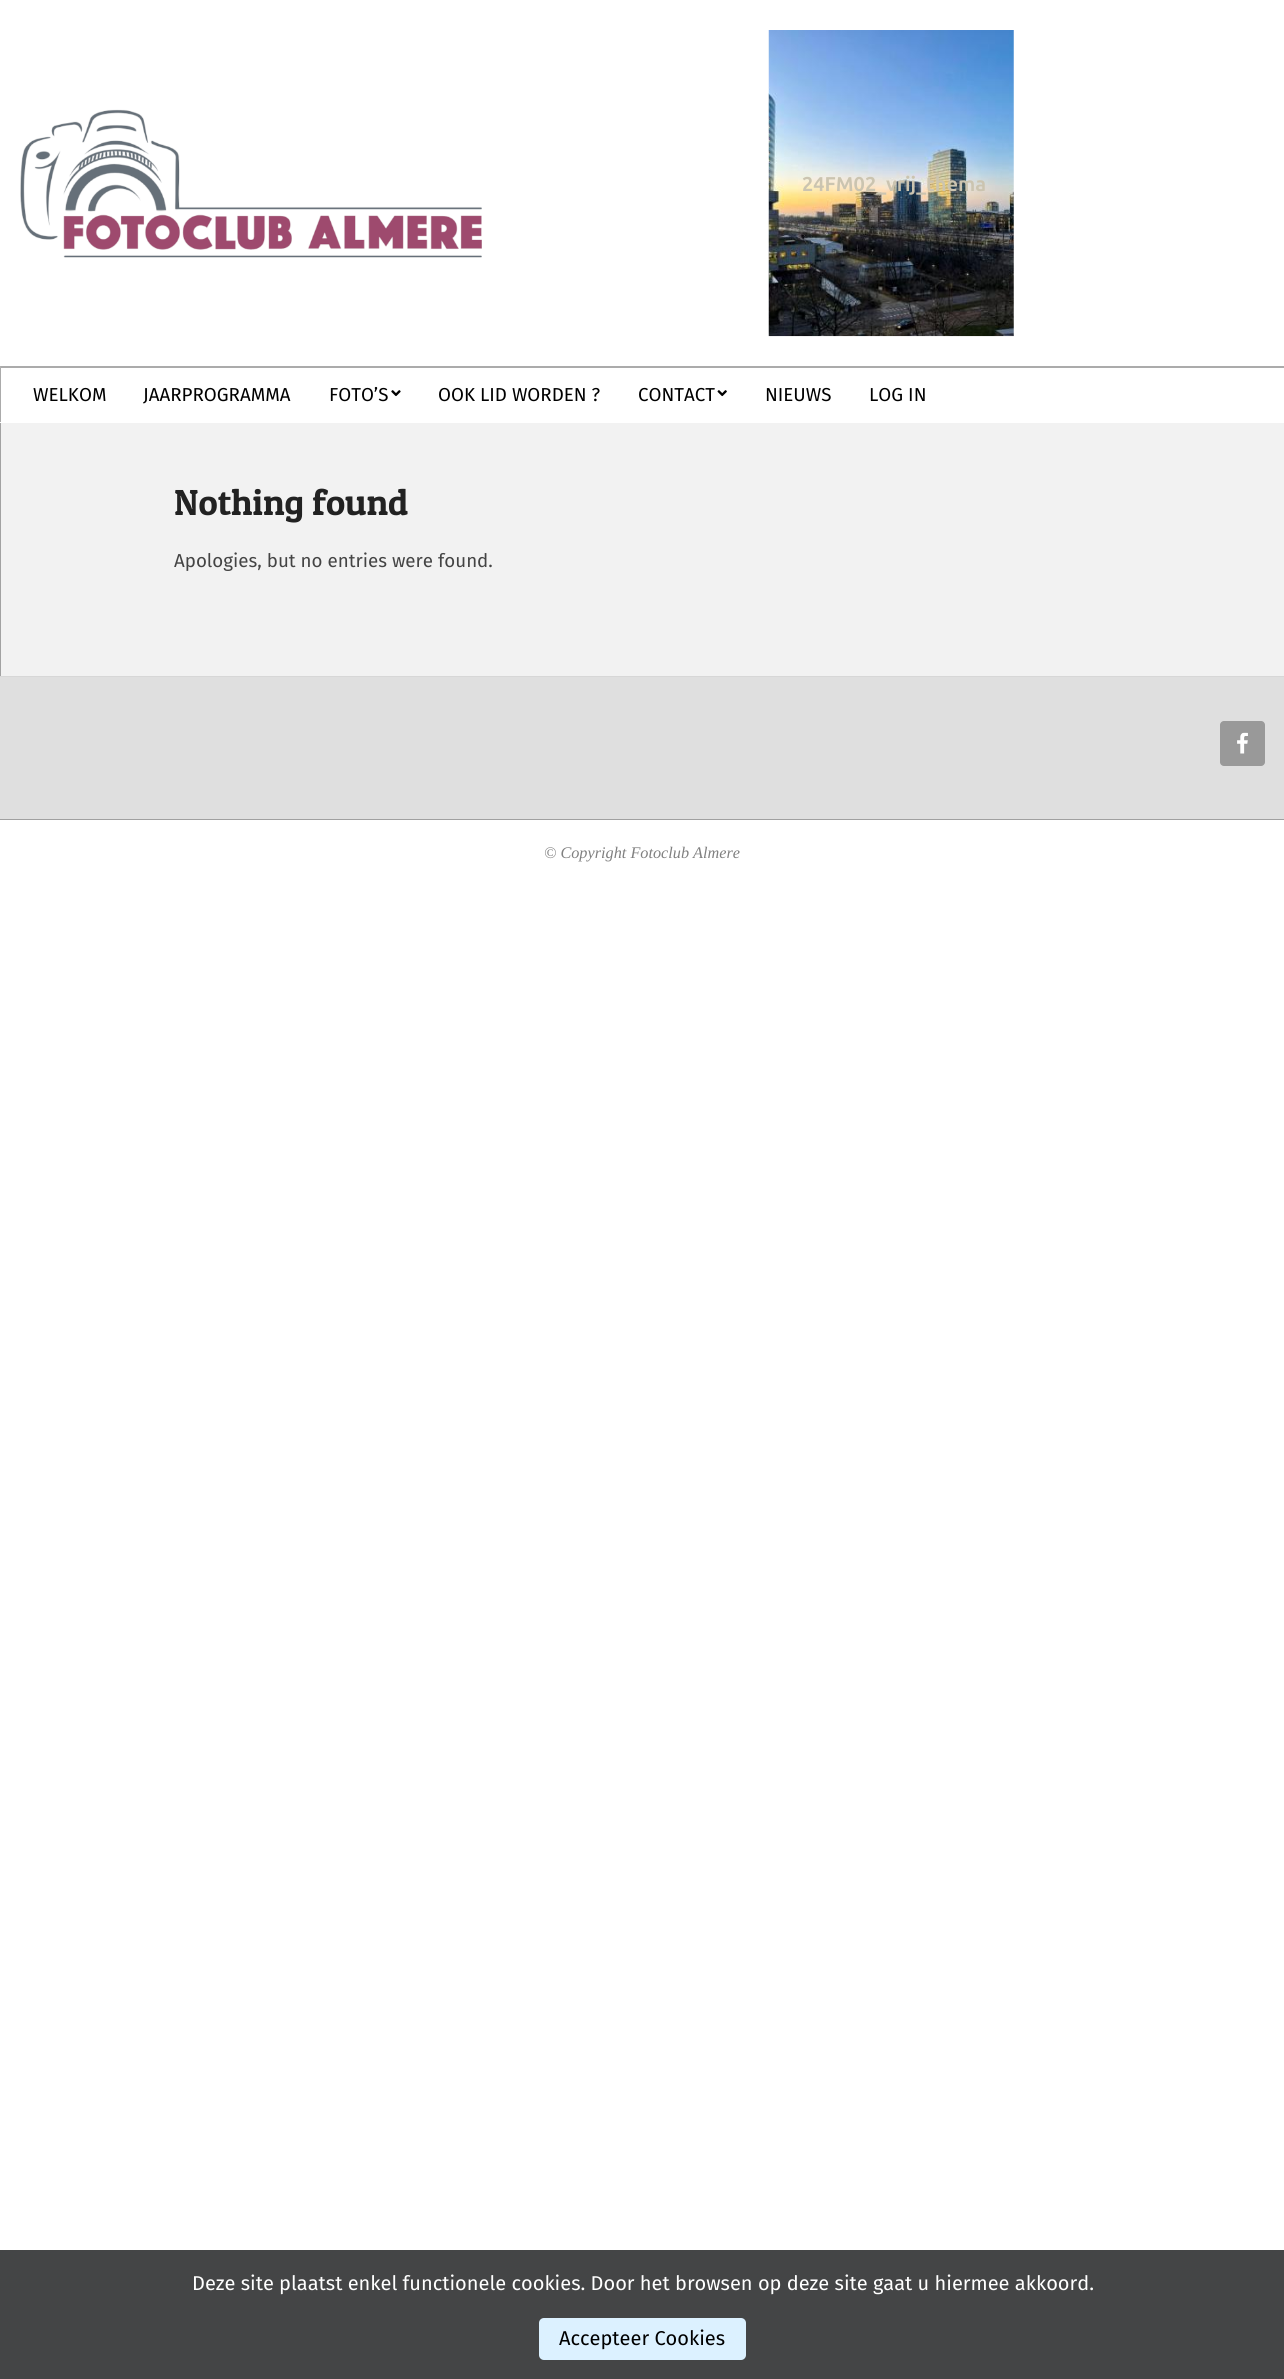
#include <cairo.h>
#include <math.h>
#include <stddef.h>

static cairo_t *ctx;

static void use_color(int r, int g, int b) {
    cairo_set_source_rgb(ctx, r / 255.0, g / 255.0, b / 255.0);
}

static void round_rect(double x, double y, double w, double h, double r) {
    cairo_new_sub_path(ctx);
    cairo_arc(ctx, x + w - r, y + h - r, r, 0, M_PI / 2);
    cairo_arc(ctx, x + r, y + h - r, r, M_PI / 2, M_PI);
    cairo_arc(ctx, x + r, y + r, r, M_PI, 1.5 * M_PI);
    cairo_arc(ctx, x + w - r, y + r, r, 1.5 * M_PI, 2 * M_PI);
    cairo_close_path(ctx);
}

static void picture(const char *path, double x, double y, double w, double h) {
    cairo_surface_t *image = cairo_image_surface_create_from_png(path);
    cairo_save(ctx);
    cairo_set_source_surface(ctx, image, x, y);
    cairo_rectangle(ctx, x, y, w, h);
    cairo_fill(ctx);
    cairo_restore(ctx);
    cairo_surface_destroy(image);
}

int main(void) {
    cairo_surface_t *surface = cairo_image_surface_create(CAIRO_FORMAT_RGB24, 1284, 2379);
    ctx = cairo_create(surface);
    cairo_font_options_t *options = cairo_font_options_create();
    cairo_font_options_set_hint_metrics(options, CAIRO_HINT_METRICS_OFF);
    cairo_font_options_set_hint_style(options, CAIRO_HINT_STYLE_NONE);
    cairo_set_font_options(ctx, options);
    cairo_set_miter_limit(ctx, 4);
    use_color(255, 255, 255);
    cairo_paint(ctx);
    picture("img1.png", 20, 109, 462, 149);
    picture("img2.png", 768, 30, 246, 307);
    cairo_select_font_face(ctx, "Ubuntu", CAIRO_FONT_SLANT_NORMAL, CAIRO_FONT_WEIGHT_BOLD);
    cairo_set_font_size(ctx, 20);
    use_color(203, 196, 176);
    cairo_move_to(ctx, 802, 191);
    cairo_show_text(ctx, "24FM02_vrij_thema");
    use_color(171, 171, 171);
    cairo_new_path(ctx);
    cairo_move_to(ctx, 0, 366);
    cairo_line_to(ctx, 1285, 366);
    cairo_line_to(ctx, 1284, 368);
    cairo_line_to(ctx, 1, 368);
    cairo_close_path(ctx);
    cairo_fill(ctx);
    cairo_set_source_rgba(ctx, 0, 0, 0, 0.33);
    cairo_new_path(ctx);
    cairo_move_to(ctx, 0, 422);
    cairo_line_to(ctx, 0, 366);
    cairo_line_to(ctx, 1, 368);
    cairo_line_to(ctx, 1, 422);
    cairo_close_path(ctx);
    cairo_fill(ctx);
    cairo_select_font_face(ctx, "Fira Sans", CAIRO_FONT_SLANT_NORMAL, CAIRO_FONT_WEIGHT_NORMAL);
    cairo_set_font_size(ctx, 18.75);
    use_color(0, 0, 0);
    cairo_move_to(ctx, 33, 401);
    cairo_show_text(ctx, "WELKOM");
    cairo_move_to(ctx, 143, 401);
    cairo_show_text(ctx, "JAARPROGRAMMA");
    cairo_move_to(ctx, 329, 401);
    cairo_show_text(ctx, "FOTO’S");
    picture("img3.png", 391, 390, 10, 7);
    cairo_move_to(ctx, 438, 401);
    cairo_show_text(ctx, "OOK LID WORDEN ?");
    cairo_move_to(ctx, 638, 401);
    cairo_show_text(ctx, "CONTACT");
    picture("img4.png", 717, 390, 10, 7);
    cairo_move_to(ctx, 765, 401);
    cairo_show_text(ctx, "NIEUWS");
    cairo_move_to(ctx, 869, 401);
    cairo_show_text(ctx, "LOG IN");
    use_color(242, 242, 242);
    cairo_rectangle(ctx, 1, 423, 1283, 253);
    cairo_fill(ctx);
    use_color(162, 162, 162);
    cairo_rectangle(ctx, 0, 423, 1, 253);
    cairo_fill(ctx);
    cairo_select_font_face(ctx, "Patua One", CAIRO_FONT_SLANT_NORMAL, CAIRO_FONT_WEIGHT_NORMAL);
    cairo_set_font_size(ctx, 36.25);
    use_color(34, 34, 34);
    cairo_move_to(ctx, 174, 515);
    cairo_show_text(ctx, "Nothing found");
    cairo_select_font_face(ctx, "Fira Sans", CAIRO_FONT_SLANT_NORMAL, CAIRO_FONT_WEIGHT_NORMAL);
    cairo_set_font_size(ctx, 18.75);
    use_color(68, 68, 68);
    cairo_move_to(ctx, 174, 567);
    cairo_show_text(ctx, "Apologies, but no entries were found.");
    use_color(223, 223, 223);
    cairo_rectangle(ctx, 0, 677, 1284, 142);
    cairo_fill(ctx);
    use_color(215, 215, 215);
    cairo_rectangle(ctx, 0, 676, 1284, 1);
    cairo_fill(ctx);
    use_color(153, 153, 153);
    round_rect(1220, 721, 45, 45, 4);
    cairo_fill(ctx);
    picture("img5.png", 1237, 732, 11, 22);
    use_color(160, 160, 160);
    cairo_rectangle(ctx, 0, 819, 1284, 1);
    cairo_fill(ctx);
    cairo_select_font_face(ctx, "Liberation Serif", CAIRO_FONT_SLANT_ITALIC, CAIRO_FONT_WEIGHT_NORMAL);
    cairo_set_font_size(ctx, 16.25);
    use_color(128, 128, 128);
    cairo_move_to(ctx, 544, 858);
    cairo_show_text(ctx, "© Copyright Fotoclub Almere");
    use_color(68, 69, 70);
    cairo_rectangle(ctx, 0, 2250, 1284, 129);
    cairo_fill(ctx);
    cairo_select_font_face(ctx, "Fira Sans", CAIRO_FONT_SLANT_NORMAL, CAIRO_FONT_WEIGHT_NORMAL);
    cairo_set_font_size(ctx, 20);
    use_color(255, 255, 255);
    cairo_move_to(ctx, 192, 2290);
    cairo_show_text(ctx, "Deze site plaatst enkel functionele cookies. Door het browsen op deze site gaat u hiermee akkoord.");
    use_color(220, 241, 255);
    round_rect(539, 2318, 207, 42, 5);
    cairo_fill(ctx);
    use_color(0, 0, 0);
    cairo_move_to(ctx, 559, 2345);
    cairo_show_text(ctx, "Accepteer Cookies");
    cairo_surface_write_to_png(surface, "result.png");
    cairo_font_options_destroy(options);
    cairo_destroy(ctx);
    cairo_surface_destroy(surface);
    return 0;
}
